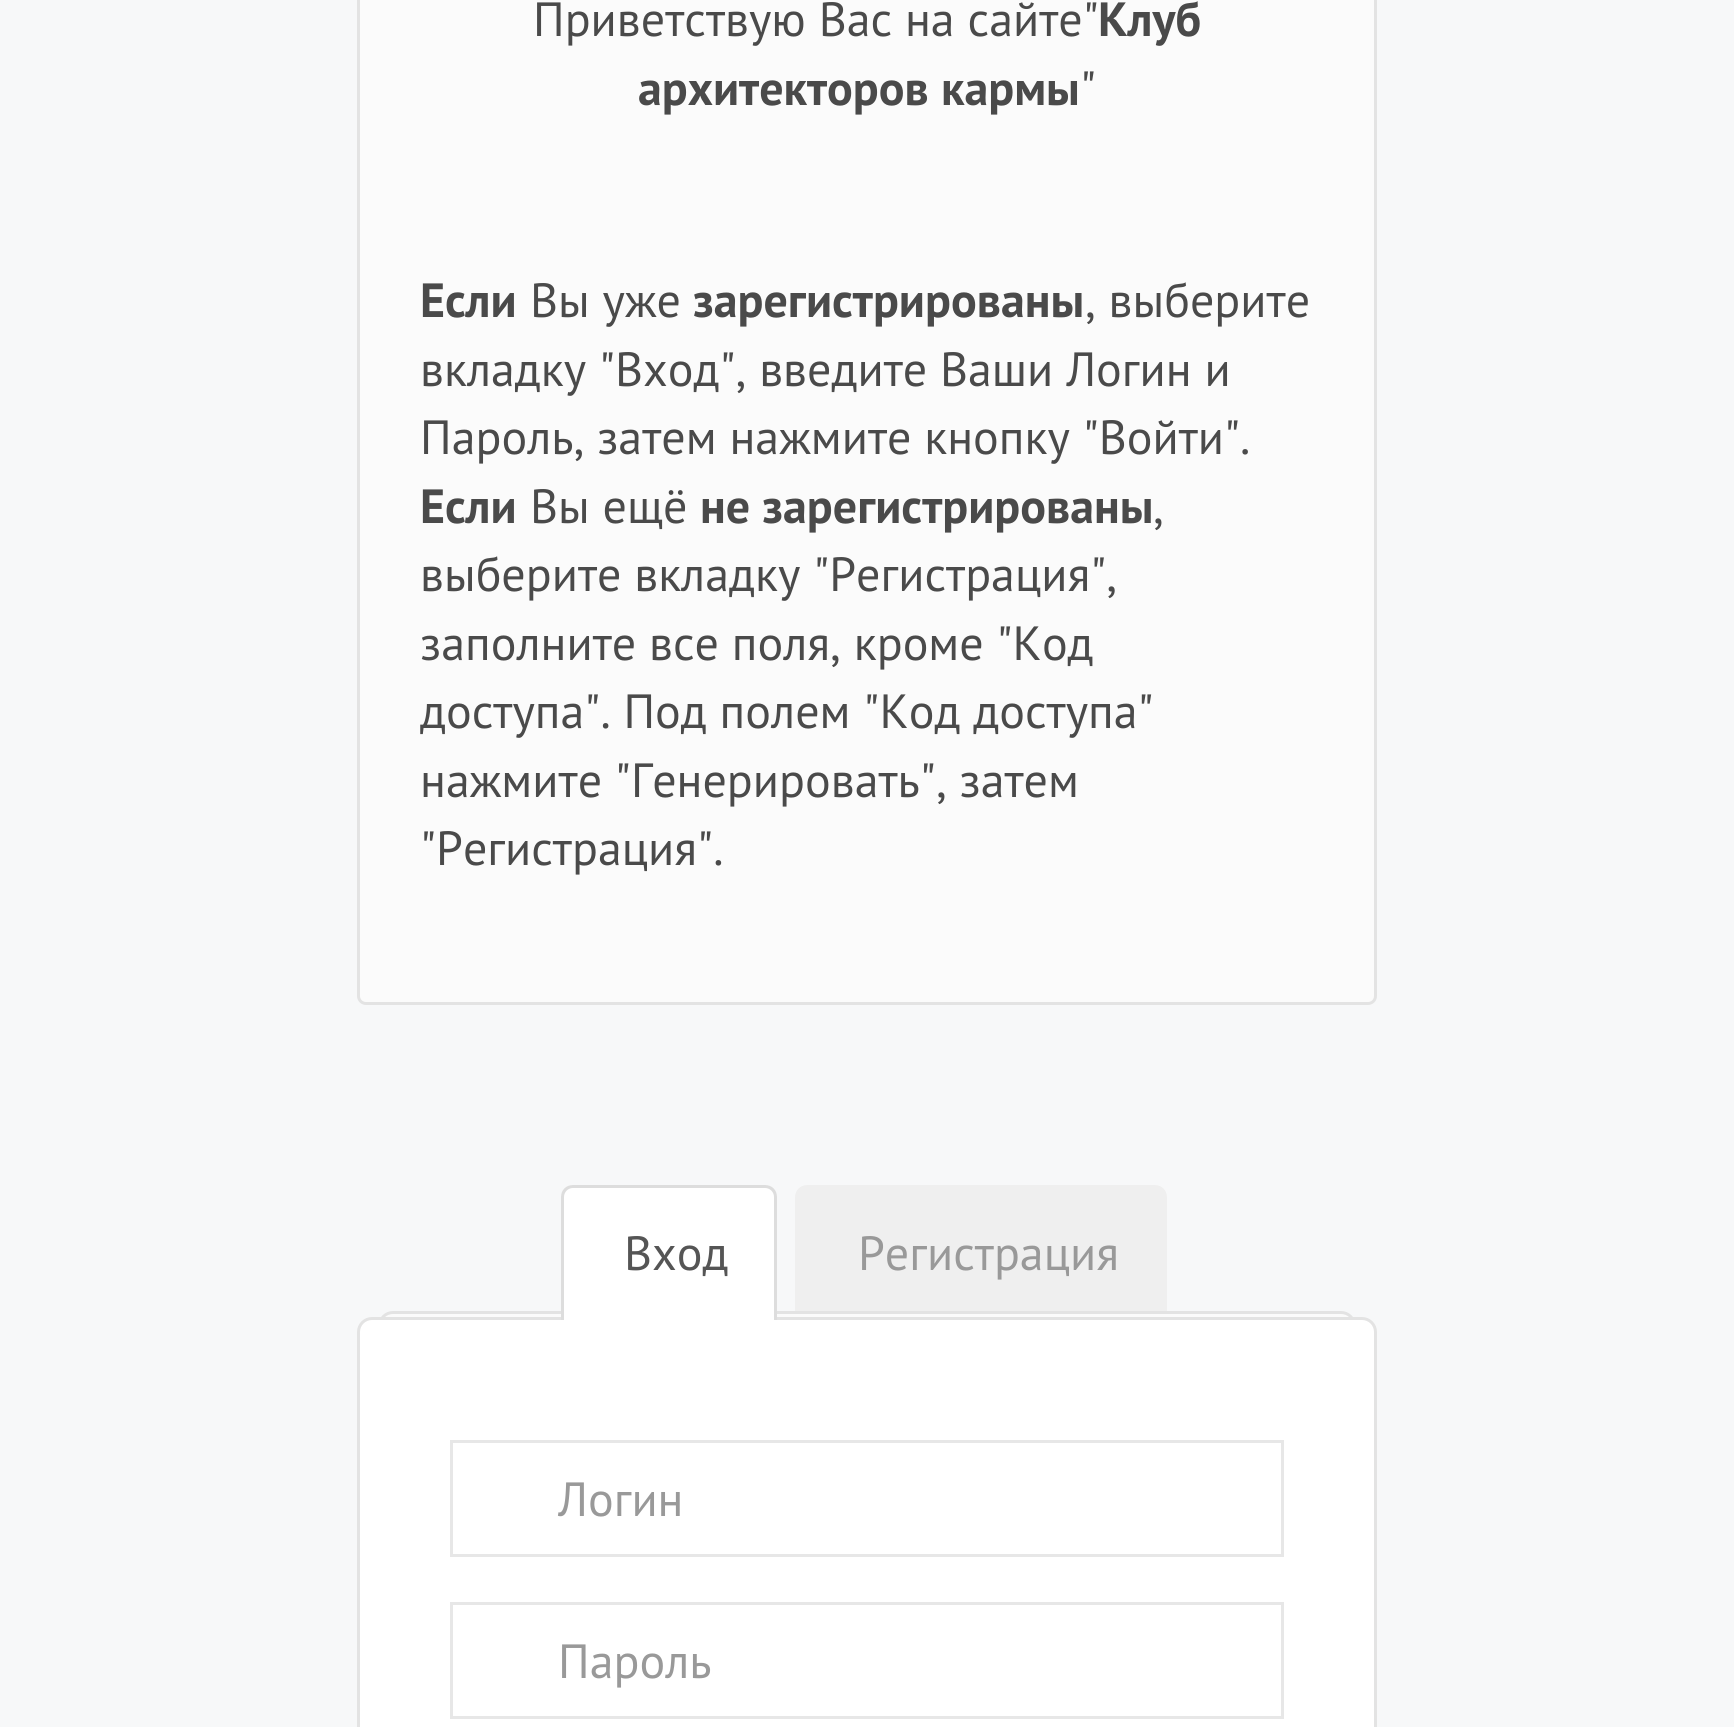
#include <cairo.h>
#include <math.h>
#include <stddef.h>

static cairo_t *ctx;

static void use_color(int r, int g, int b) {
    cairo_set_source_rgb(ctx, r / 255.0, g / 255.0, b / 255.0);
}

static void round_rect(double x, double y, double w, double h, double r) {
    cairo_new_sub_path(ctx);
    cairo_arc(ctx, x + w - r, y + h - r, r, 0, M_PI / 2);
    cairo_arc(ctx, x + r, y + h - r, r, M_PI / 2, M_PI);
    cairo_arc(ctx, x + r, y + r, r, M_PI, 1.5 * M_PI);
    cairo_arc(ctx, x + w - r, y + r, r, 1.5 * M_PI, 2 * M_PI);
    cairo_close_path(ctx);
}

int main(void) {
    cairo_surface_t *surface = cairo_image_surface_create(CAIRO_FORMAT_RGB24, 1734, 1727);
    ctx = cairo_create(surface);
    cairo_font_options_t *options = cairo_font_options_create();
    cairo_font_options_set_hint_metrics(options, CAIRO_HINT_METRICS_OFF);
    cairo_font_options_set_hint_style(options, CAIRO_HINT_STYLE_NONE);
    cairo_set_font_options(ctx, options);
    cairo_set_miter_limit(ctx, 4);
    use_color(247, 248, 249);
    cairo_paint(ctx);
    use_color(251, 251, 251);
    round_rect(358.5, -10.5, 1017, 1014, 7.5);
    cairo_fill_preserve(ctx);
    use_color(227, 227, 227);
    cairo_set_line_width(ctx, 3);
    cairo_stroke(ctx);
    cairo_select_font_face(ctx, "PT Sans", CAIRO_FONT_SLANT_NORMAL, CAIRO_FONT_WEIGHT_NORMAL);
    cairo_set_font_size(ctx, 48);
    use_color(74, 74, 74);
    cairo_move_to(ctx, 533, 36);
    cairo_show_text(ctx, "Приветствую Вас на сайте\"");
    cairo_select_font_face(ctx, "PT Sans", CAIRO_FONT_SLANT_NORMAL, CAIRO_FONT_WEIGHT_BOLD);
    cairo_move_to(ctx, 1098, 36);
    cairo_show_text(ctx, "Клуб");
    cairo_select_font_face(ctx, "PT Sans", CAIRO_FONT_SLANT_NORMAL, CAIRO_FONT_WEIGHT_NORMAL);
    cairo_move_to(ctx, 1080, 105);
    cairo_show_text(ctx, "\"");
    cairo_select_font_face(ctx, "PT Sans", CAIRO_FONT_SLANT_NORMAL, CAIRO_FONT_WEIGHT_BOLD);
    cairo_move_to(ctx, 638, 105);
    cairo_show_text(ctx, "архитекторов кармы");
    cairo_move_to(ctx, 420, 317);
    cairo_show_text(ctx, "Если");
    cairo_select_font_face(ctx, "PT Sans", CAIRO_FONT_SLANT_NORMAL, CAIRO_FONT_WEIGHT_NORMAL);
    cairo_move_to(ctx, 530, 317);
    cairo_show_text(ctx, "Вы уже");
    cairo_select_font_face(ctx, "PT Sans", CAIRO_FONT_SLANT_NORMAL, CAIRO_FONT_WEIGHT_BOLD);
    cairo_move_to(ctx, 693, 317);
    cairo_show_text(ctx, "зарегистрированы");
    cairo_select_font_face(ctx, "PT Sans", CAIRO_FONT_SLANT_NORMAL, CAIRO_FONT_WEIGHT_NORMAL);
    cairo_move_to(ctx, 1085, 317);
    cairo_show_text(ctx, ", выберите");
    cairo_move_to(ctx, 420, 386);
    cairo_show_text(ctx, "вкладку \"Вход\", введите Ваши Логин и");
    cairo_move_to(ctx, 420, 454);
    cairo_show_text(ctx, "Пароль, затем нажмите кнопку \"Войти\".");
    cairo_select_font_face(ctx, "PT Sans", CAIRO_FONT_SLANT_NORMAL, CAIRO_FONT_WEIGHT_BOLD);
    cairo_move_to(ctx, 420, 523);
    cairo_show_text(ctx, "Если");
    cairo_select_font_face(ctx, "PT Sans", CAIRO_FONT_SLANT_NORMAL, CAIRO_FONT_WEIGHT_NORMAL);
    cairo_move_to(ctx, 530, 523);
    cairo_show_text(ctx, "Вы ещё");
    cairo_select_font_face(ctx, "PT Sans", CAIRO_FONT_SLANT_NORMAL, CAIRO_FONT_WEIGHT_BOLD);
    cairo_move_to(ctx, 700, 523);
    cairo_show_text(ctx, "не зарегистрированы");
    cairo_select_font_face(ctx, "PT Sans", CAIRO_FONT_SLANT_NORMAL, CAIRO_FONT_WEIGHT_NORMAL);
    cairo_move_to(ctx, 1153, 523);
    cairo_show_text(ctx, ",");
    cairo_move_to(ctx, 420, 591);
    cairo_show_text(ctx, "выберите вкладку \"Регистрация\",");
    cairo_move_to(ctx, 420, 660);
    cairo_show_text(ctx, "заполните все поля, кроме \"Код");
    cairo_move_to(ctx, 420, 728);
    cairo_show_text(ctx, "доступа\". Под полем \"Код доступа\"");
    cairo_move_to(ctx, 420, 797);
    cairo_show_text(ctx, "нажмите \"Генерировать\", затем");
    cairo_move_to(ctx, 420, 865);
    cairo_show_text(ctx, "\"Регистрация\".");
    use_color(251, 251, 251);
    round_rect(379.5, 1312.5, 975, 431, 13.5);
    cairo_fill_preserve(ctx);
    use_color(227, 227, 227);
    cairo_stroke(ctx);
    use_color(255, 255, 255);
    round_rect(358.5, 1318.5, 1017, 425, 13.5);
    cairo_fill_preserve(ctx);
    use_color(227, 227, 227);
    cairo_stroke(ctx);
    use_color(255, 255, 255);
    cairo_new_path(ctx);
    cairo_move_to(ctx, 573, 1185);
    cairo_line_to(ctx, 765, 1185);
    cairo_curve_to(ctx, 771.5, 1185, 777, 1190.5, 777, 1197);
    cairo_line_to(ctx, 777, 1320);
    cairo_line_to(ctx, 561, 1320);
    cairo_line_to(ctx, 561, 1197);
    cairo_curve_to(ctx, 561, 1190.5, 566.5, 1185, 573, 1185);
    cairo_close_path(ctx);
    cairo_fill(ctx);
    use_color(221, 221, 221);
    cairo_set_fill_rule(ctx, CAIRO_FILL_RULE_EVEN_ODD);
    cairo_new_path(ctx);
    cairo_move_to(ctx, 573, 1185);
    cairo_line_to(ctx, 765, 1185);
    cairo_curve_to(ctx, 772, 1185, 777, 1190, 777, 1197);
    cairo_line_to(ctx, 777, 1320);
    cairo_line_to(ctx, 561, 1320);
    cairo_line_to(ctx, 561, 1197);
    cairo_curve_to(ctx, 561, 1190, 566, 1185, 573, 1185);
    cairo_close_path(ctx);
    cairo_move_to(ctx, 573, 1188);
    cairo_line_to(ctx, 765, 1188);
    cairo_curve_to(ctx, 770, 1188, 774, 1192, 774, 1197);
    cairo_line_to(ctx, 774, 1320);
    cairo_line_to(ctx, 564, 1320);
    cairo_line_to(ctx, 564, 1197);
    cairo_curve_to(ctx, 564, 1192, 568, 1188, 573, 1188);
    cairo_close_path(ctx);
    cairo_fill(ctx);
    use_color(85, 85, 85);
    cairo_move_to(ctx, 624, 1270);
    cairo_show_text(ctx, "Вход");
    use_color(239, 239, 239);
    cairo_new_path(ctx);
    cairo_move_to(ctx, 807, 1185);
    cairo_line_to(ctx, 1155, 1185);
    cairo_curve_to(ctx, 1161.5, 1185, 1167, 1190.5, 1167, 1197);
    cairo_line_to(ctx, 1167, 1311);
    cairo_line_to(ctx, 795, 1311);
    cairo_line_to(ctx, 795, 1197);
    cairo_curve_to(ctx, 795, 1190.5, 800.5, 1185, 807, 1185);
    cairo_close_path(ctx);
    cairo_fill(ctx);
    use_color(153, 153, 153);
    cairo_move_to(ctx, 858, 1270);
    cairo_show_text(ctx, "Регистрация");
    cairo_rectangle(ctx, 451.5, 1441.5, 831, 114);
    use_color(231, 231, 231);
    cairo_stroke(ctx);
    use_color(153, 153, 153);
    cairo_move_to(ctx, 558, 1516);
    cairo_show_text(ctx, "Логин");
    cairo_rectangle(ctx, 451.5, 1603.5, 831, 114);
    use_color(231, 231, 231);
    cairo_stroke(ctx);
    use_color(153, 153, 153);
    cairo_move_to(ctx, 558, 1678);
    cairo_show_text(ctx, "Пароль");
    cairo_surface_write_to_png(surface, "result.png");
    cairo_font_options_destroy(options);
    cairo_destroy(ctx);
    cairo_surface_destroy(surface);
    return 0;
}
